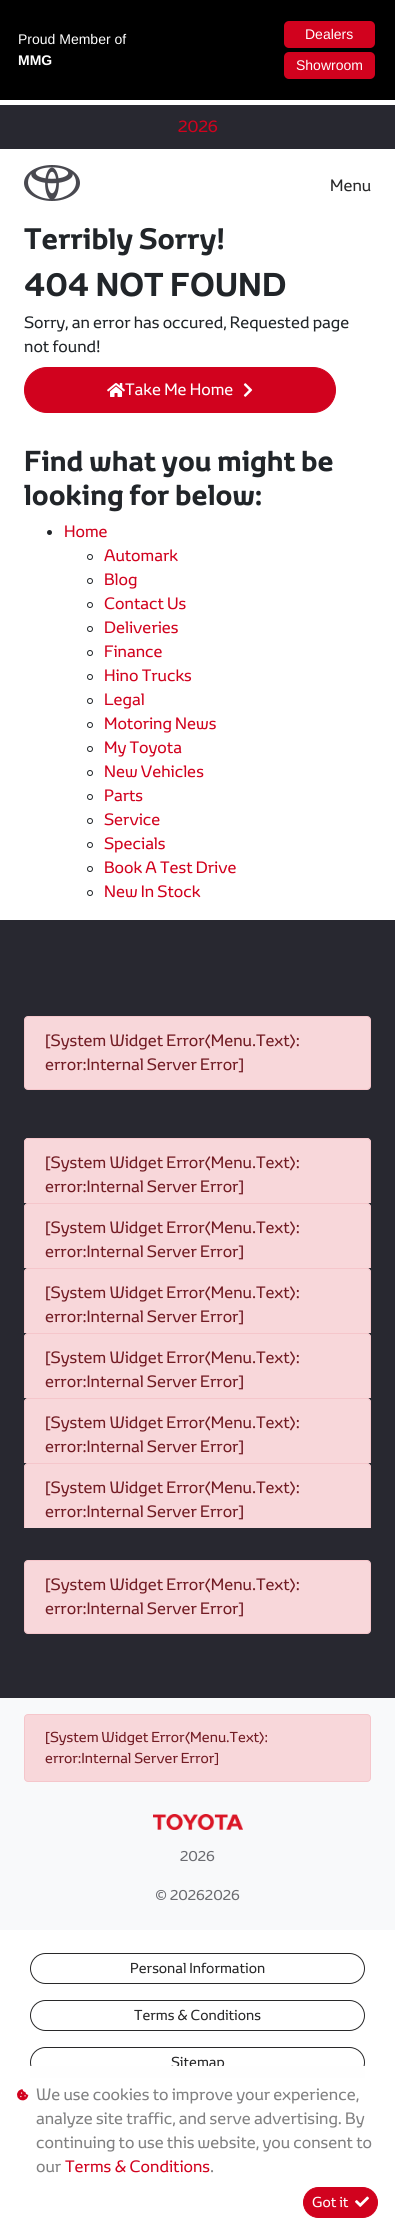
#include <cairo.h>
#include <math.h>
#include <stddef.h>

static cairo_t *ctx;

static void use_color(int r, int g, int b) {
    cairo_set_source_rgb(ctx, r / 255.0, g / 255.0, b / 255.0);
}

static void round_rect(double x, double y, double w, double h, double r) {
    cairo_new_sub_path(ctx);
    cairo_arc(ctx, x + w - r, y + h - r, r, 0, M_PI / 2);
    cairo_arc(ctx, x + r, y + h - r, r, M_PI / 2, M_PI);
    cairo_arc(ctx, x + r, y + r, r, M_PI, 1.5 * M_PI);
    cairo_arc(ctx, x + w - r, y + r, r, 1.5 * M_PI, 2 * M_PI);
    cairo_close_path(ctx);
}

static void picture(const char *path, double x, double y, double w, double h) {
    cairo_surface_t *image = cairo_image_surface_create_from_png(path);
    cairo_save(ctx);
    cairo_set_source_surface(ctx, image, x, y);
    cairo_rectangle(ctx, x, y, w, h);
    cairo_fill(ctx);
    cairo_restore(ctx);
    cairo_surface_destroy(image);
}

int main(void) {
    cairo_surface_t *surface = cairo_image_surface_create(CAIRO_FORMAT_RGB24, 395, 2235);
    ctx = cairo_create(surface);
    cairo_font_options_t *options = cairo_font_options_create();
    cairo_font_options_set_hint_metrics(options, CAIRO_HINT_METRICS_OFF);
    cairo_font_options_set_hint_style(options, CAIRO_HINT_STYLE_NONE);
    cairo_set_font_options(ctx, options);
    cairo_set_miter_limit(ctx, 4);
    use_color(255, 255, 255);
    cairo_paint(ctx);
    use_color(0, 0, 0);
    cairo_rectangle(ctx, 0, 0, 395, 100);
    cairo_fill(ctx);
    cairo_select_font_face(ctx, "Liberation Sans", CAIRO_FONT_SLANT_NORMAL, CAIRO_FONT_WEIGHT_NORMAL);
    cairo_set_font_size(ctx, 14);
    use_color(255, 255, 255);
    cairo_move_to(ctx, 18, 44);
    cairo_show_text(ctx, "Proud Member of");
    cairo_select_font_face(ctx, "Liberation Sans", CAIRO_FONT_SLANT_NORMAL, CAIRO_FONT_WEIGHT_BOLD);
    cairo_move_to(ctx, 18, 65);
    cairo_show_text(ctx, "MMG");
    use_color(209, 2, 30);
    round_rect(284, 21, 91, 27, 5);
    cairo_fill(ctx);
    cairo_select_font_face(ctx, "Liberation Sans", CAIRO_FONT_SLANT_NORMAL, CAIRO_FONT_WEIGHT_NORMAL);
    use_color(255, 255, 255);
    cairo_move_to(ctx, 305, 39);
    cairo_show_text(ctx, "Dealers");
    use_color(209, 2, 30);
    round_rect(284, 52, 91, 27, 5);
    cairo_fill(ctx);
    use_color(255, 255, 255);
    cairo_move_to(ctx, 296, 70);
    cairo_show_text(ctx, "Showroom");
    use_color(40, 40, 48);
    cairo_rectangle(ctx, 0, 105, 395, 44);
    cairo_fill(ctx);
    cairo_select_font_face(ctx, "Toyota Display", CAIRO_FONT_SLANT_NORMAL, CAIRO_FONT_WEIGHT_NORMAL);
    cairo_set_font_size(ctx, 16);
    use_color(209, 2, 30);
    cairo_move_to(ctx, 178, 132);
    cairo_show_text(ctx, "2026");
    picture("img1.png", 24, 165, 56, 36);
    use_color(40, 40, 41);
    cairo_move_to(ctx, 330, 191);
    cairo_show_text(ctx, "Menu");
    cairo_select_font_face(ctx, "Toyota Display", CAIRO_FONT_SLANT_NORMAL, CAIRO_FONT_WEIGHT_BOLD);
    cairo_set_font_size(ctx, 28.75);
    use_color(33, 37, 41);
    cairo_move_to(ctx, 24, 249);
    cairo_show_text(ctx, "Terribly Sorry!");
    cairo_set_font_size(ctx, 32);
    cairo_move_to(ctx, 24, 296);
    cairo_show_text(ctx, "404 NOT FOUND");
    cairo_select_font_face(ctx, "Toyota Display", CAIRO_FONT_SLANT_NORMAL, CAIRO_FONT_WEIGHT_NORMAL);
    cairo_set_font_size(ctx, 16);
    cairo_move_to(ctx, 24, 328);
    cairo_show_text(ctx, "Sorry, an error has occured, Requested page");
    cairo_move_to(ctx, 24, 352);
    cairo_show_text(ctx, "not found!");
    use_color(209, 2, 30);
    round_rect(24.5, 367.5, 311, 45, 22.5);
    cairo_fill_preserve(ctx);
    cairo_set_line_width(ctx, 1);
    cairo_stroke(ctx);
    picture("img2.png", 107, 383, 18, 14);
    use_color(255, 255, 255);
    cairo_move_to(ctx, 125, 395);
    cairo_show_text(ctx, "Take Me Home");
    picture("img3.png", 243, 383, 10, 14);
    cairo_select_font_face(ctx, "Toyota Display", CAIRO_FONT_SLANT_NORMAL, CAIRO_FONT_WEIGHT_BOLD);
    cairo_set_font_size(ctx, 28);
    use_color(33, 37, 41);
    cairo_move_to(ctx, 24, 471);
    cairo_show_text(ctx, "Find what you might be");
    cairo_move_to(ctx, 24, 505);
    cairo_show_text(ctx, "looking for below:");
    cairo_new_path(ctx);
    cairo_arc(ctx, 49.5, 532.5, 2.5, 0, 2 * M_PI);
    cairo_fill(ctx);
    cairo_select_font_face(ctx, "Toyota Display", CAIRO_FONT_SLANT_NORMAL, CAIRO_FONT_WEIGHT_NORMAL);
    cairo_set_font_size(ctx, 16);
    use_color(209, 2, 30);
    cairo_move_to(ctx, 64, 537);
    cairo_show_text(ctx, "Home");
    cairo_new_path(ctx);
    cairo_arc(ctx, 90, 557, 2.5, 0, 2 * M_PI);
    use_color(33, 37, 41);
    cairo_stroke(ctx);
    use_color(209, 2, 30);
    cairo_move_to(ctx, 104, 561);
    cairo_show_text(ctx, "Automark");
    cairo_new_path(ctx);
    cairo_arc(ctx, 90, 581, 2.5, 0, 2 * M_PI);
    use_color(33, 37, 41);
    cairo_stroke(ctx);
    use_color(209, 2, 30);
    cairo_move_to(ctx, 104, 585);
    cairo_show_text(ctx, "Blog");
    cairo_new_path(ctx);
    cairo_arc(ctx, 90, 605, 2.5, 0, 2 * M_PI);
    use_color(33, 37, 41);
    cairo_stroke(ctx);
    use_color(209, 2, 30);
    cairo_move_to(ctx, 104, 609);
    cairo_show_text(ctx, "Contact Us");
    cairo_new_path(ctx);
    cairo_arc(ctx, 90, 629, 2.5, 0, 2 * M_PI);
    use_color(33, 37, 41);
    cairo_stroke(ctx);
    use_color(209, 2, 30);
    cairo_move_to(ctx, 104, 633);
    cairo_show_text(ctx, "Deliveries");
    cairo_new_path(ctx);
    cairo_arc(ctx, 90, 653, 2.5, 0, 2 * M_PI);
    use_color(33, 37, 41);
    cairo_stroke(ctx);
    use_color(209, 2, 30);
    cairo_move_to(ctx, 104, 657);
    cairo_show_text(ctx, "Finance");
    cairo_new_path(ctx);
    cairo_arc(ctx, 90, 677, 2.5, 0, 2 * M_PI);
    use_color(33, 37, 41);
    cairo_stroke(ctx);
    use_color(209, 2, 30);
    cairo_move_to(ctx, 104, 681);
    cairo_show_text(ctx, "Hino Trucks");
    cairo_new_path(ctx);
    cairo_arc(ctx, 90, 701, 2.5, 0, 2 * M_PI);
    use_color(33, 37, 41);
    cairo_stroke(ctx);
    use_color(209, 2, 30);
    cairo_move_to(ctx, 104, 705);
    cairo_show_text(ctx, "Legal");
    cairo_new_path(ctx);
    cairo_arc(ctx, 90, 725, 2.5, 0, 2 * M_PI);
    use_color(33, 37, 41);
    cairo_stroke(ctx);
    use_color(209, 2, 30);
    cairo_move_to(ctx, 104, 729);
    cairo_show_text(ctx, "Motoring News");
    cairo_new_path(ctx);
    cairo_arc(ctx, 90, 749, 2.5, 0, 2 * M_PI);
    use_color(33, 37, 41);
    cairo_stroke(ctx);
    use_color(209, 2, 30);
    cairo_move_to(ctx, 104, 753);
    cairo_show_text(ctx, "My Toyota");
    cairo_new_path(ctx);
    cairo_arc(ctx, 90, 773, 2.5, 0, 2 * M_PI);
    use_color(33, 37, 41);
    cairo_stroke(ctx);
    use_color(209, 2, 30);
    cairo_move_to(ctx, 104, 777);
    cairo_show_text(ctx, "New Vehicles");
    cairo_new_path(ctx);
    cairo_arc(ctx, 90, 797, 2.5, 0, 2 * M_PI);
    use_color(33, 37, 41);
    cairo_stroke(ctx);
    use_color(209, 2, 30);
    cairo_move_to(ctx, 104, 801);
    cairo_show_text(ctx, "Parts");
    cairo_new_path(ctx);
    cairo_arc(ctx, 90, 821, 2.5, 0, 2 * M_PI);
    use_color(33, 37, 41);
    cairo_stroke(ctx);
    use_color(209, 2, 30);
    cairo_move_to(ctx, 104, 825);
    cairo_show_text(ctx, "Service");
    cairo_new_path(ctx);
    cairo_arc(ctx, 90, 845, 2.5, 0, 2 * M_PI);
    use_color(33, 37, 41);
    cairo_stroke(ctx);
    use_color(209, 2, 30);
    cairo_move_to(ctx, 104, 849);
    cairo_show_text(ctx, "Specials");
    cairo_new_path(ctx);
    cairo_arc(ctx, 90, 869, 2.5, 0, 2 * M_PI);
    use_color(33, 37, 41);
    cairo_stroke(ctx);
    use_color(209, 2, 30);
    cairo_move_to(ctx, 104, 873);
    cairo_show_text(ctx, "Book A Test Drive");
    cairo_new_path(ctx);
    cairo_arc(ctx, 90, 893, 2.5, 0, 2 * M_PI);
    use_color(33, 37, 41);
    cairo_stroke(ctx);
    use_color(209, 2, 30);
    cairo_move_to(ctx, 104, 897);
    cairo_show_text(ctx, "New In Stock");
    use_color(40, 40, 48);
    cairo_rectangle(ctx, 0, 920, 395, 778);
    cairo_fill(ctx);
    use_color(248, 215, 218);
    round_rect(24.5, 1016.5, 346, 73, 3.5);
    cairo_fill_preserve(ctx);
    use_color(245, 198, 203);
    cairo_stroke(ctx);
    use_color(114, 28, 36);
    cairo_move_to(ctx, 45, 1046);
    cairo_show_text(ctx, "[System Widget Error(Menu.Text):");
    cairo_move_to(ctx, 45, 1070);
    cairo_show_text(ctx, "error:Internal Server Error]");
    use_color(248, 215, 218);
    cairo_new_path(ctx);
    cairo_move_to(ctx, 28, 1138);
    cairo_line_to(ctx, 367, 1138);
    cairo_curve_to(ctx, 369, 1138, 371, 1140, 371, 1142);
    cairo_line_to(ctx, 371, 1203);
    cairo_line_to(ctx, 24, 1203);
    cairo_line_to(ctx, 24, 1142);
    cairo_curve_to(ctx, 24, 1140, 26, 1138, 28, 1138);
    cairo_close_path(ctx);
    cairo_fill(ctx);
    cairo_save(ctx);
    cairo_rectangle(ctx, 24, 1138, 347, 65);
    cairo_clip(ctx);
    round_rect(24.5, 1138.5, 346, 73, 3.5);
    use_color(245, 198, 203);
    cairo_stroke(ctx);
    cairo_restore(ctx);
    use_color(114, 28, 36);
    cairo_move_to(ctx, 45, 1168);
    cairo_show_text(ctx, "[System Widget Error(Menu.Text):");
    cairo_move_to(ctx, 45, 1192);
    cairo_show_text(ctx, "error:Internal Server Error]");
    use_color(248, 215, 218);
    cairo_new_path(ctx);
    cairo_move_to(ctx, 28, 1203);
    cairo_line_to(ctx, 367, 1203);
    cairo_curve_to(ctx, 369, 1203, 371, 1205, 371, 1207);
    cairo_line_to(ctx, 371, 1268);
    cairo_line_to(ctx, 24, 1268);
    cairo_line_to(ctx, 24, 1207);
    cairo_curve_to(ctx, 24, 1205, 26, 1203, 28, 1203);
    cairo_close_path(ctx);
    cairo_fill(ctx);
    cairo_save(ctx);
    cairo_rectangle(ctx, 24, 1203, 347, 65);
    cairo_clip(ctx);
    round_rect(24.5, 1203.5, 346, 73, 3.5);
    use_color(245, 198, 203);
    cairo_stroke(ctx);
    cairo_restore(ctx);
    use_color(114, 28, 36);
    cairo_move_to(ctx, 45, 1233);
    cairo_show_text(ctx, "[System Widget Error(Menu.Text):");
    cairo_move_to(ctx, 45, 1257);
    cairo_show_text(ctx, "error:Internal Server Error]");
    use_color(248, 215, 218);
    cairo_new_path(ctx);
    cairo_move_to(ctx, 28, 1268);
    cairo_line_to(ctx, 367, 1268);
    cairo_curve_to(ctx, 369, 1268, 371, 1270, 371, 1272);
    cairo_line_to(ctx, 371, 1333);
    cairo_line_to(ctx, 24, 1333);
    cairo_line_to(ctx, 24, 1272);
    cairo_curve_to(ctx, 24, 1270, 26, 1268, 28, 1268);
    cairo_close_path(ctx);
    cairo_fill(ctx);
    cairo_save(ctx);
    cairo_rectangle(ctx, 24, 1268, 347, 65);
    cairo_clip(ctx);
    round_rect(24.5, 1268.5, 346, 73, 3.5);
    use_color(245, 198, 203);
    cairo_stroke(ctx);
    cairo_restore(ctx);
    use_color(114, 28, 36);
    cairo_move_to(ctx, 45, 1298);
    cairo_show_text(ctx, "[System Widget Error(Menu.Text):");
    cairo_move_to(ctx, 45, 1322);
    cairo_show_text(ctx, "error:Internal Server Error]");
    use_color(248, 215, 218);
    cairo_new_path(ctx);
    cairo_move_to(ctx, 28, 1333);
    cairo_line_to(ctx, 367, 1333);
    cairo_curve_to(ctx, 369, 1333, 371, 1335, 371, 1337);
    cairo_line_to(ctx, 371, 1398);
    cairo_line_to(ctx, 24, 1398);
    cairo_line_to(ctx, 24, 1337);
    cairo_curve_to(ctx, 24, 1335, 26, 1333, 28, 1333);
    cairo_close_path(ctx);
    cairo_fill(ctx);
    cairo_save(ctx);
    cairo_rectangle(ctx, 24, 1333, 347, 65);
    cairo_clip(ctx);
    round_rect(24.5, 1333.5, 346, 73, 3.5);
    use_color(245, 198, 203);
    cairo_stroke(ctx);
    cairo_restore(ctx);
    use_color(114, 28, 36);
    cairo_move_to(ctx, 45, 1363);
    cairo_show_text(ctx, "[System Widget Error(Menu.Text):");
    cairo_move_to(ctx, 45, 1387);
    cairo_show_text(ctx, "error:Internal Server Error]");
    use_color(248, 215, 218);
    cairo_new_path(ctx);
    cairo_move_to(ctx, 28, 1398);
    cairo_line_to(ctx, 367, 1398);
    cairo_curve_to(ctx, 369, 1398, 371, 1400, 371, 1402);
    cairo_line_to(ctx, 371, 1463);
    cairo_line_to(ctx, 24, 1463);
    cairo_line_to(ctx, 24, 1402);
    cairo_curve_to(ctx, 24, 1400, 26, 1398, 28, 1398);
    cairo_close_path(ctx);
    cairo_fill(ctx);
    cairo_save(ctx);
    cairo_rectangle(ctx, 24, 1398, 347, 65);
    cairo_clip(ctx);
    round_rect(24.5, 1398.5, 346, 73, 3.5);
    use_color(245, 198, 203);
    cairo_stroke(ctx);
    cairo_restore(ctx);
    use_color(114, 28, 36);
    cairo_move_to(ctx, 45, 1428);
    cairo_show_text(ctx, "[System Widget Error(Menu.Text):");
    cairo_move_to(ctx, 45, 1452);
    cairo_show_text(ctx, "error:Internal Server Error]");
    use_color(248, 215, 218);
    cairo_new_path(ctx);
    cairo_move_to(ctx, 28, 1463);
    cairo_line_to(ctx, 367, 1463);
    cairo_curve_to(ctx, 369, 1463, 371, 1465, 371, 1467);
    cairo_line_to(ctx, 371, 1528);
    cairo_line_to(ctx, 24, 1528);
    cairo_line_to(ctx, 24, 1467);
    cairo_curve_to(ctx, 24, 1465, 26, 1463, 28, 1463);
    cairo_close_path(ctx);
    cairo_fill(ctx);
    cairo_save(ctx);
    cairo_rectangle(ctx, 24, 1463, 347, 65);
    cairo_clip(ctx);
    round_rect(24.5, 1463.5, 346, 73, 3.5);
    use_color(245, 198, 203);
    cairo_stroke(ctx);
    cairo_restore(ctx);
    use_color(114, 28, 36);
    cairo_move_to(ctx, 45, 1493);
    cairo_show_text(ctx, "[System Widget Error(Menu.Text):");
    cairo_move_to(ctx, 45, 1517);
    cairo_show_text(ctx, "error:Internal Server Error]");
    use_color(248, 215, 218);
    round_rect(24.5, 1560.5, 346, 73, 3.5);
    cairo_fill_preserve(ctx);
    use_color(245, 198, 203);
    cairo_stroke(ctx);
    use_color(114, 28, 36);
    cairo_move_to(ctx, 45, 1590);
    cairo_show_text(ctx, "[System Widget Error(Menu.Text):");
    cairo_move_to(ctx, 45, 1614);
    cairo_show_text(ctx, "error:Internal Server Error]");
    use_color(248, 249, 250);
    cairo_rectangle(ctx, 0, 1698, 395, 232);
    cairo_fill(ctx);
    use_color(248, 215, 218);
    round_rect(24.5, 1714.5, 346, 67, 3.5);
    cairo_fill_preserve(ctx);
    use_color(245, 198, 203);
    cairo_stroke(ctx);
    cairo_set_font_size(ctx, 14);
    use_color(114, 28, 36);
    cairo_move_to(ctx, 45, 1742);
    cairo_show_text(ctx, "[System Widget Error(Menu.Text):");
    cairo_move_to(ctx, 45, 1763);
    cairo_show_text(ctx, "error:Internal Server Error]");
    picture("img4.png", 153, 1814, 90, 16);
    use_color(106, 107, 112);
    cairo_move_to(ctx, 180, 1861);
    cairo_show_text(ctx, "2026");
    cairo_move_to(ctx, 155, 1900);
    cairo_show_text(ctx, "© 20262026");
    round_rect(30.5, 1953.5, 334, 30, 15);
    use_color(40, 40, 41);
    cairo_stroke(ctx);
    cairo_move_to(ctx, 130, 1973);
    cairo_show_text(ctx, "Personal Information");
    round_rect(30.5, 2000.5, 334, 30, 15);
    cairo_stroke(ctx);
    cairo_move_to(ctx, 134, 2020);
    cairo_show_text(ctx, "Terms & Conditions");
    round_rect(30.5, 2047.5, 334, 30, 15);
    cairo_stroke(ctx);
    cairo_move_to(ctx, 171, 2067);
    cairo_show_text(ctx, "Sitemap");
    use_color(254, 254, 254);
    cairo_rectangle(ctx, 30, 2066, 335, 12);
    cairo_fill(ctx);
    picture("img5.png", 17, 2089, 12, 12);
    cairo_set_font_size(ctx, 16);
    use_color(129, 129, 130);
    cairo_move_to(ctx, 36, 2100);
    cairo_show_text(ctx, "We use cookies to improve your experience,");
    cairo_move_to(ctx, 36, 2124);
    cairo_show_text(ctx, "analyze site traffic, and serve advertising. By");
    cairo_move_to(ctx, 36, 2148);
    cairo_show_text(ctx, "continuing to use this website, you consent to");
    cairo_move_to(ctx, 36, 2172);
    cairo_show_text(ctx, "our");
    use_color(209, 2, 30);
    cairo_move_to(ctx, 65, 2172);
    cairo_show_text(ctx, "Terms & Conditions");
    use_color(129, 129, 130);
    cairo_move_to(ctx, 210, 2172);
    cairo_show_text(ctx, ".");
    use_color(209, 2, 30);
    round_rect(303.5, 2187.5, 74, 30, 15);
    cairo_fill_preserve(ctx);
    cairo_stroke(ctx);
    cairo_set_font_size(ctx, 14);
    use_color(255, 255, 255);
    cairo_move_to(ctx, 312, 2207);
    cairo_show_text(ctx, "Got it");
    picture("img6.png", 355, 2196, 14, 11);
    cairo_surface_write_to_png(surface, "result.png");
    cairo_font_options_destroy(options);
    cairo_destroy(ctx);
    cairo_surface_destroy(surface);
    return 0;
}
